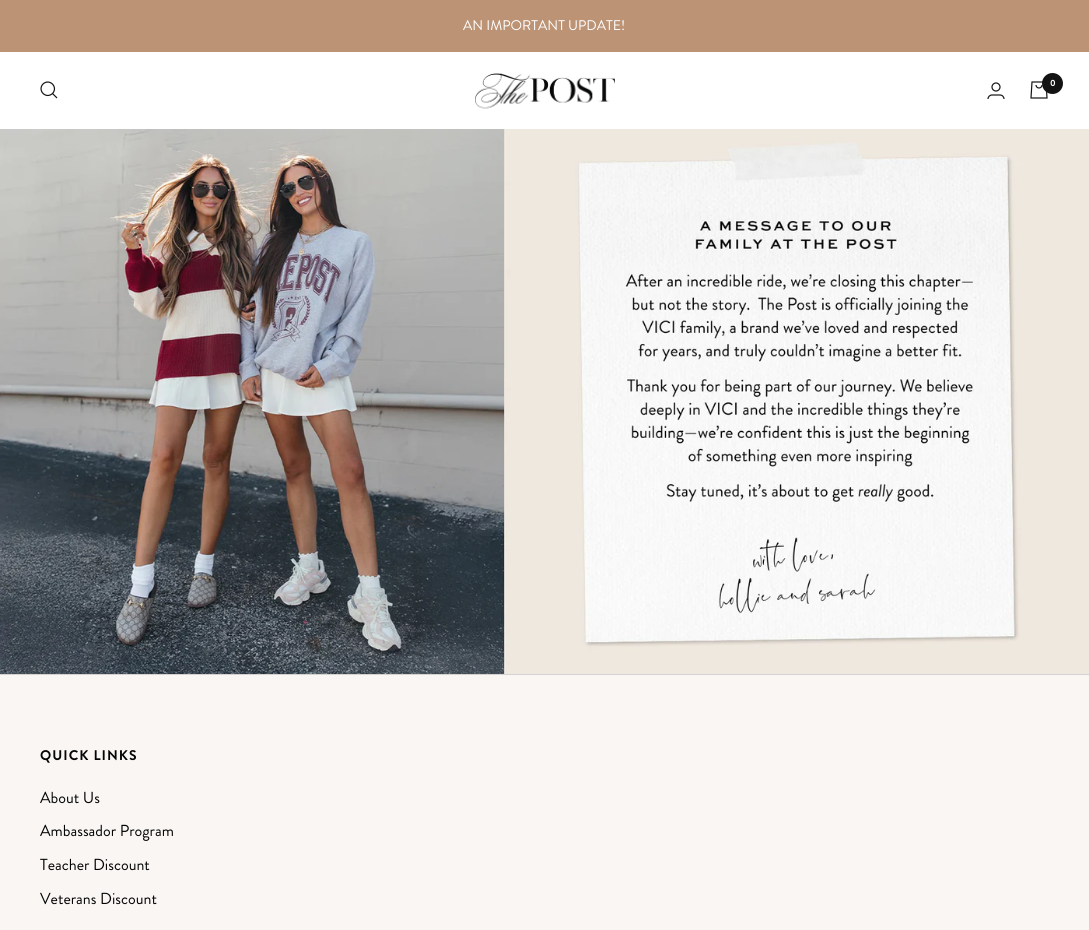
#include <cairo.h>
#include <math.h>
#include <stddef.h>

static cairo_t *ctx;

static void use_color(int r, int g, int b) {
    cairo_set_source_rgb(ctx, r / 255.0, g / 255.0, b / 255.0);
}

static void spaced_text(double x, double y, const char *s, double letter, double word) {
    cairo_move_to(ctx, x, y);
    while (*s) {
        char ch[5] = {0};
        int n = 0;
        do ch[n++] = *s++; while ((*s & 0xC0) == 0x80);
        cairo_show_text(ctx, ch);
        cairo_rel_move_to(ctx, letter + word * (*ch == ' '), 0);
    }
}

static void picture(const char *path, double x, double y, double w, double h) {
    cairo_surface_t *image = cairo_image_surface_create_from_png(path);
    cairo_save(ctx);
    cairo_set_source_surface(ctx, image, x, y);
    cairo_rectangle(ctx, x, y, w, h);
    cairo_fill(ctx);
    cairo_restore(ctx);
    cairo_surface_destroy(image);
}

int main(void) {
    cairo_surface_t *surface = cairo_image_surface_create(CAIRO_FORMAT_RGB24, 1089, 930);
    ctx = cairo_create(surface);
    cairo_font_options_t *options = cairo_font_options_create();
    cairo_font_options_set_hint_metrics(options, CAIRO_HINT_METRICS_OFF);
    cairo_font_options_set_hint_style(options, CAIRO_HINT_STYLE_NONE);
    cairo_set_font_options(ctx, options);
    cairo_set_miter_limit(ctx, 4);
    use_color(249, 246, 244);
    cairo_paint(ctx);
    use_color(188, 147, 117);
    cairo_rectangle(ctx, 0, 0, 1089, 52);
    cairo_fill(ctx);
    cairo_select_font_face(ctx, "Brandon Grotesque", CAIRO_FONT_SLANT_NORMAL, CAIRO_FONT_WEIGHT_NORMAL);
    cairo_set_font_size(ctx, 14);
    use_color(255, 255, 255);
    cairo_move_to(ctx, 463, 30);
    cairo_show_text(ctx, "AN IMPORTANT UPDATE!");
    cairo_rectangle(ctx, 0, 52, 1089, 77);
    cairo_fill(ctx);
    cairo_new_path(ctx);
    cairo_move_to(ctx, 52.5, 93.5);
    cairo_curve_to(ctx, 58.5, 87, 49.5, 78, 43, 84);
    cairo_curve_to(ctx, 37, 90.5, 46, 99.5, 52.5, 93.5);
    cairo_close_path(ctx);
    cairo_move_to(ctx, 52.5, 93.5);
    cairo_line_to(ctx, 57, 98);
    use_color(19, 19, 19);
    cairo_set_line_width(ctx, 1.2);
    cairo_stroke(ctx);
    picture("img1.png", 475, 73, 140, 36);
    picture("img2.png", 987, 82, 18, 17);
    picture("img3.png", 1030, 81, 18, 18);
    cairo_arc(ctx, 1052.5, 83.5, 10.5, 0, 2 * M_PI);
    cairo_fill(ctx);
    cairo_select_font_face(ctx, "Brandon Grotesque", CAIRO_FONT_SLANT_NORMAL, CAIRO_FONT_WEIGHT_BOLD);
    cairo_set_font_size(ctx, 9);
    use_color(255, 255, 255);
    cairo_move_to(ctx, 1050, 86);
    cairo_show_text(ctx, "0");
    picture("img4.png", 0, 129, 1089, 545);
    use_color(212, 210, 208);
    cairo_rectangle(ctx, 0, 674, 1089, 1);
    cairo_fill(ctx);
    cairo_set_font_size(ctx, 14);
    use_color(5, 5, 5);
    spaced_text(40, 760, "QUICK LINKS", 1, 0);
    cairo_select_font_face(ctx, "Brandon Grotesque", CAIRO_FONT_SLANT_NORMAL, CAIRO_FONT_WEIGHT_NORMAL);
    cairo_set_font_size(ctx, 16);
    cairo_move_to(ctx, 40, 803);
    cairo_show_text(ctx, "About Us");
    cairo_move_to(ctx, 40, 836);
    cairo_show_text(ctx, "Ambassador Program");
    cairo_move_to(ctx, 40, 870);
    cairo_show_text(ctx, "Teacher Discount");
    cairo_move_to(ctx, 40, 904);
    cairo_show_text(ctx, "Veterans Discount");
    cairo_surface_write_to_png(surface, "result.png");
    cairo_font_options_destroy(options);
    cairo_destroy(ctx);
    cairo_surface_destroy(surface);
    return 0;
}
